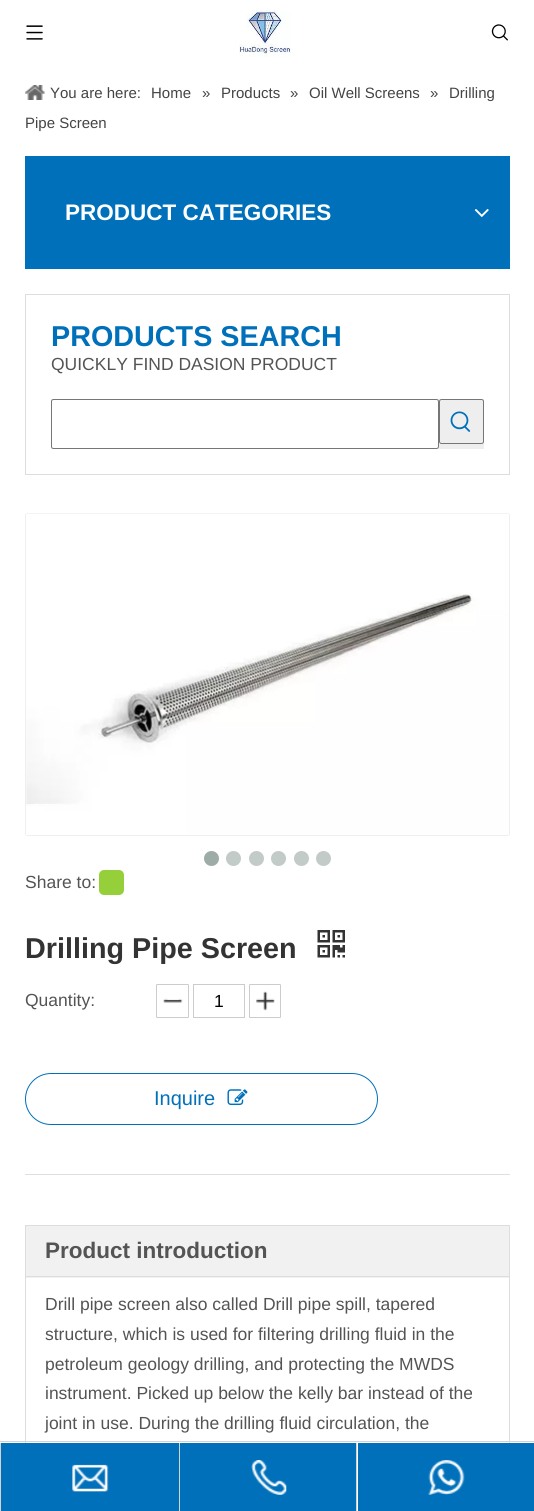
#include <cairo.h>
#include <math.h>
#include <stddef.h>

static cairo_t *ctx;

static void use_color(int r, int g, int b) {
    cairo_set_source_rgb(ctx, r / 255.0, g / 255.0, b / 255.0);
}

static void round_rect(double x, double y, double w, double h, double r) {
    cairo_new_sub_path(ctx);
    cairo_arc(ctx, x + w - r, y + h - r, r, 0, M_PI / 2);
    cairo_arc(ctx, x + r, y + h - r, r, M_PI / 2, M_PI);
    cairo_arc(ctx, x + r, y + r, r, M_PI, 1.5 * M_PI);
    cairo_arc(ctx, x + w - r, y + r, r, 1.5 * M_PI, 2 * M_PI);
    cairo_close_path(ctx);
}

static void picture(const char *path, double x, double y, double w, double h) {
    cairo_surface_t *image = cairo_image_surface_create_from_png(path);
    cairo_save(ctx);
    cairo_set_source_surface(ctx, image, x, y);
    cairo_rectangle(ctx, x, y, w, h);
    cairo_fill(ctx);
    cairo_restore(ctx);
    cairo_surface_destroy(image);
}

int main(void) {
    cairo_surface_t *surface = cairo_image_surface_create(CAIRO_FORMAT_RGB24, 534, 1511);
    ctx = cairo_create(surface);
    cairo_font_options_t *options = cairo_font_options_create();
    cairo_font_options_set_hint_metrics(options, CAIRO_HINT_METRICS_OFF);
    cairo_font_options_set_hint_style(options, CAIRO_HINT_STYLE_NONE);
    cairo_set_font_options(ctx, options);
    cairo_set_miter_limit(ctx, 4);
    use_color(255, 255, 255);
    cairo_paint(ctx);
    picture("img1.png", 26, 25, 17, 15);
    picture("img2.png", 239, 10, 52, 47);
    picture("img3.png", 491, 24, 17, 17);
    picture("img4.png", 25, 85, 20, 15);
    cairo_select_font_face(ctx, "Liberation Sans", CAIRO_FONT_SLANT_NORMAL, CAIRO_FONT_WEIGHT_NORMAL);
    cairo_set_font_size(ctx, 15);
    use_color(68, 68, 68);
    cairo_move_to(ctx, 50, 98);
    cairo_show_text(ctx, "You are here:");
    cairo_move_to(ctx, 151, 98);
    cairo_show_text(ctx, "Home");
    cairo_move_to(ctx, 202, 98);
    cairo_show_text(ctx, "»");
    cairo_move_to(ctx, 221, 98);
    cairo_show_text(ctx, "Products");
    cairo_move_to(ctx, 290, 98);
    cairo_show_text(ctx, "»");
    cairo_move_to(ctx, 309, 98);
    cairo_show_text(ctx, "Oil Well Screens");
    cairo_move_to(ctx, 430, 98);
    cairo_show_text(ctx, "»");
    cairo_move_to(ctx, 449, 98);
    cairo_show_text(ctx, "Drilling");
    cairo_move_to(ctx, 25, 128);
    cairo_show_text(ctx, "Pipe Screen");
    use_color(0, 112, 186);
    cairo_rectangle(ctx, 25, 156, 485, 113);
    cairo_fill(ctx);
    cairo_select_font_face(ctx, "Liberation Sans", CAIRO_FONT_SLANT_NORMAL, CAIRO_FONT_WEIGHT_BOLD);
    cairo_set_font_size(ctx, 22.5);
    use_color(255, 255, 255);
    cairo_move_to(ctx, 65, 220);
    cairo_show_text(ctx, "PRODUCT CATEGORIES");
    picture("img5.png", 474, 209, 15, 8);
    use_color(221, 221, 221);
    cairo_rectangle(ctx, 25, 294, 485, 1);
    cairo_fill(ctx);
    cairo_rectangle(ctx, 509, 294, 1, 181);
    cairo_fill(ctx);
    cairo_rectangle(ctx, 25, 294, 1, 105);
    cairo_fill(ctx);
    cairo_set_font_size(ctx, 28.75);
    use_color(0, 112, 186);
    cairo_move_to(ctx, 51, 346);
    cairo_show_text(ctx, "PRODUCTS SEARCH");
    cairo_select_font_face(ctx, "Liberation Sans", CAIRO_FONT_SLANT_NORMAL, CAIRO_FONT_WEIGHT_NORMAL);
    cairo_set_font_size(ctx, 17.5);
    use_color(84, 84, 84);
    cairo_move_to(ctx, 51, 370);
    cairo_show_text(ctx, "QUICKLY FIND DASION PRODUCT");
    use_color(221, 221, 221);
    cairo_rectangle(ctx, 25, 474, 485, 1);
    cairo_fill(ctx);
    cairo_rectangle(ctx, 25, 399, 1, 76);
    cairo_fill(ctx);
    use_color(238, 238, 238);
    cairo_rectangle(ctx, 51, 399, 433, 50);
    cairo_fill(ctx);
    use_color(255, 255, 255);
    round_rect(51.5, 399.5, 387, 49, 2);
    cairo_fill_preserve(ctx);
    use_color(118, 118, 118);
    cairo_set_line_width(ctx, 1);
    cairo_stroke(ctx);
    round_rect(439.5, 399.5, 44, 44, 2);
    cairo_stroke(ctx);
    picture("img6.png", 450, 411, 21, 21);
    round_rect(25.5, 513.5, 484, 322, 2);
    use_color(239, 239, 239);
    cairo_stroke(ctx);
    picture("img7.png", 26, 513, 483, 322);
    use_color(158, 172, 167);
    cairo_arc(ctx, 211.5, 858.5, 7.5, 0, 2 * M_PI);
    cairo_fill(ctx);
    use_color(195, 203, 200);
    cairo_arc(ctx, 233.5, 858.5, 7.5, 0, 2 * M_PI);
    cairo_fill(ctx);
    cairo_arc(ctx, 256.5, 858.5, 7.5, 0, 2 * M_PI);
    cairo_fill(ctx);
    cairo_arc(ctx, 278.5, 858.5, 7.5, 0, 2 * M_PI);
    cairo_fill(ctx);
    cairo_arc(ctx, 301.5, 858.5, 7.5, 0, 2 * M_PI);
    cairo_fill(ctx);
    cairo_arc(ctx, 323.5, 858.5, 7.5, 0, 2 * M_PI);
    cairo_fill(ctx);
    use_color(84, 84, 84);
    cairo_move_to(ctx, 25, 888);
    cairo_show_text(ctx, "Share to:");
    use_color(149, 208, 58);
    round_rect(99, 870, 25, 25, 5);
    cairo_fill(ctx);
    cairo_select_font_face(ctx, "Liberation Sans", CAIRO_FONT_SLANT_NORMAL, CAIRO_FONT_WEIGHT_BOLD);
    cairo_set_font_size(ctx, 28.75);
    use_color(51, 51, 51);
    cairo_move_to(ctx, 25, 958);
    cairo_show_text(ctx, "Drilling Pipe Screen");
    picture("img8.png", 317, 930, 28, 28);
    cairo_select_font_face(ctx, "Liberation Sans", CAIRO_FONT_SLANT_NORMAL, CAIRO_FONT_WEIGHT_NORMAL);
    cairo_set_font_size(ctx, 17.5);
    use_color(84, 84, 84);
    cairo_move_to(ctx, 25, 1006);
    cairo_show_text(ctx, "Quantity:");
    picture("img9.png", 163, 998, 20, 5);
    round_rect(156.5, 984.5, 32, 33, 0.5);
    use_color(204, 204, 204);
    cairo_stroke(ctx);
    cairo_rectangle(ctx, 193.5, 984.5, 51, 33);
    cairo_stroke(ctx);
    use_color(0, 0, 0);
    cairo_move_to(ctx, 214, 1007);
    cairo_show_text(ctx, "1");
    picture("img10.png", 256, 991, 19, 20);
    round_rect(249.5, 984.5, 31, 33, 0.5);
    use_color(204, 204, 204);
    cairo_stroke(ctx);
    round_rect(25.5, 1073.5, 352, 51, 25.5);
    use_color(0, 112, 186);
    cairo_stroke(ctx);
    cairo_set_font_size(ctx, 20);
    cairo_move_to(ctx, 154, 1105);
    cairo_show_text(ctx, "Inquire");
    picture("img11.png", 227, 1089, 21, 16);
    use_color(223, 223, 223);
    cairo_rectangle(ctx, 25, 1174, 485, 1);
    cairo_fill(ctx);
    cairo_rectangle(ctx, 25.5, 1225.5, 484, 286);
    use_color(221, 221, 221);
    cairo_stroke(ctx);
    use_color(241, 241, 241);
    cairo_rectangle(ctx, 26, 1226, 483, 52);
    cairo_fill(ctx);
    use_color(221, 221, 221);
    cairo_rectangle(ctx, 26, 1276, 483, 1);
    cairo_fill(ctx);
    cairo_select_font_face(ctx, "Liberation Sans", CAIRO_FONT_SLANT_NORMAL, CAIRO_FONT_WEIGHT_BOLD);
    cairo_set_font_size(ctx, 22.5);
    use_color(84, 84, 84);
    cairo_move_to(ctx, 45, 1258);
    cairo_show_text(ctx, "Product introduction");
    cairo_select_font_face(ctx, "Liberation Sans", CAIRO_FONT_SLANT_NORMAL, CAIRO_FONT_WEIGHT_NORMAL);
    cairo_set_font_size(ctx, 17.5);
    cairo_move_to(ctx, 45, 1310);
    cairo_show_text(ctx, "Drill pipe screen also called Drill pipe spill, tapered");
    cairo_move_to(ctx, 45, 1340);
    cairo_show_text(ctx, "structure, which is used for filtering drilling fluid in the");
    cairo_move_to(ctx, 45, 1370);
    cairo_show_text(ctx, "petroleum geology drilling, and protecting the MWDS");
    cairo_move_to(ctx, 45, 1399);
    cairo_show_text(ctx, "instrument. Picked up below the kelly bar instead of the");
    cairo_move_to(ctx, 45, 1429);
    cairo_show_text(ctx, "joint in use. During the drilling fluid circulation, the");
    use_color(211, 211, 211);
    cairo_rectangle(ctx, 0, 1441, 534, 1);
    cairo_fill(ctx);
    cairo_rectangle(ctx, 0, 1443, 1, 68);
    cairo_fill(ctx);
    use_color(0, 112, 186);
    cairo_rectangle(ctx, 1, 1443, 178, 68);
    cairo_fill(ctx);
    picture("img12.png", 72, 1464, 37, 28);
    use_color(211, 211, 211);
    cairo_rectangle(ctx, 179, 1443, 1, 68);
    cairo_fill(ctx);
    use_color(0, 112, 186);
    cairo_rectangle(ctx, 180, 1443, 176, 68);
    cairo_fill(ctx);
    picture("img13.png", 251, 1460, 36, 35);
    use_color(211, 211, 211);
    cairo_rectangle(ctx, 356, 1443, 1, 68);
    cairo_fill(ctx);
    use_color(0, 112, 186);
    cairo_rectangle(ctx, 358, 1443, 176, 68);
    cairo_fill(ctx);
    picture("img14.png", 428, 1460, 37, 35);
    cairo_surface_write_to_png(surface, "result.png");
    cairo_font_options_destroy(options);
    cairo_destroy(ctx);
    cairo_surface_destroy(surface);
    return 0;
}
